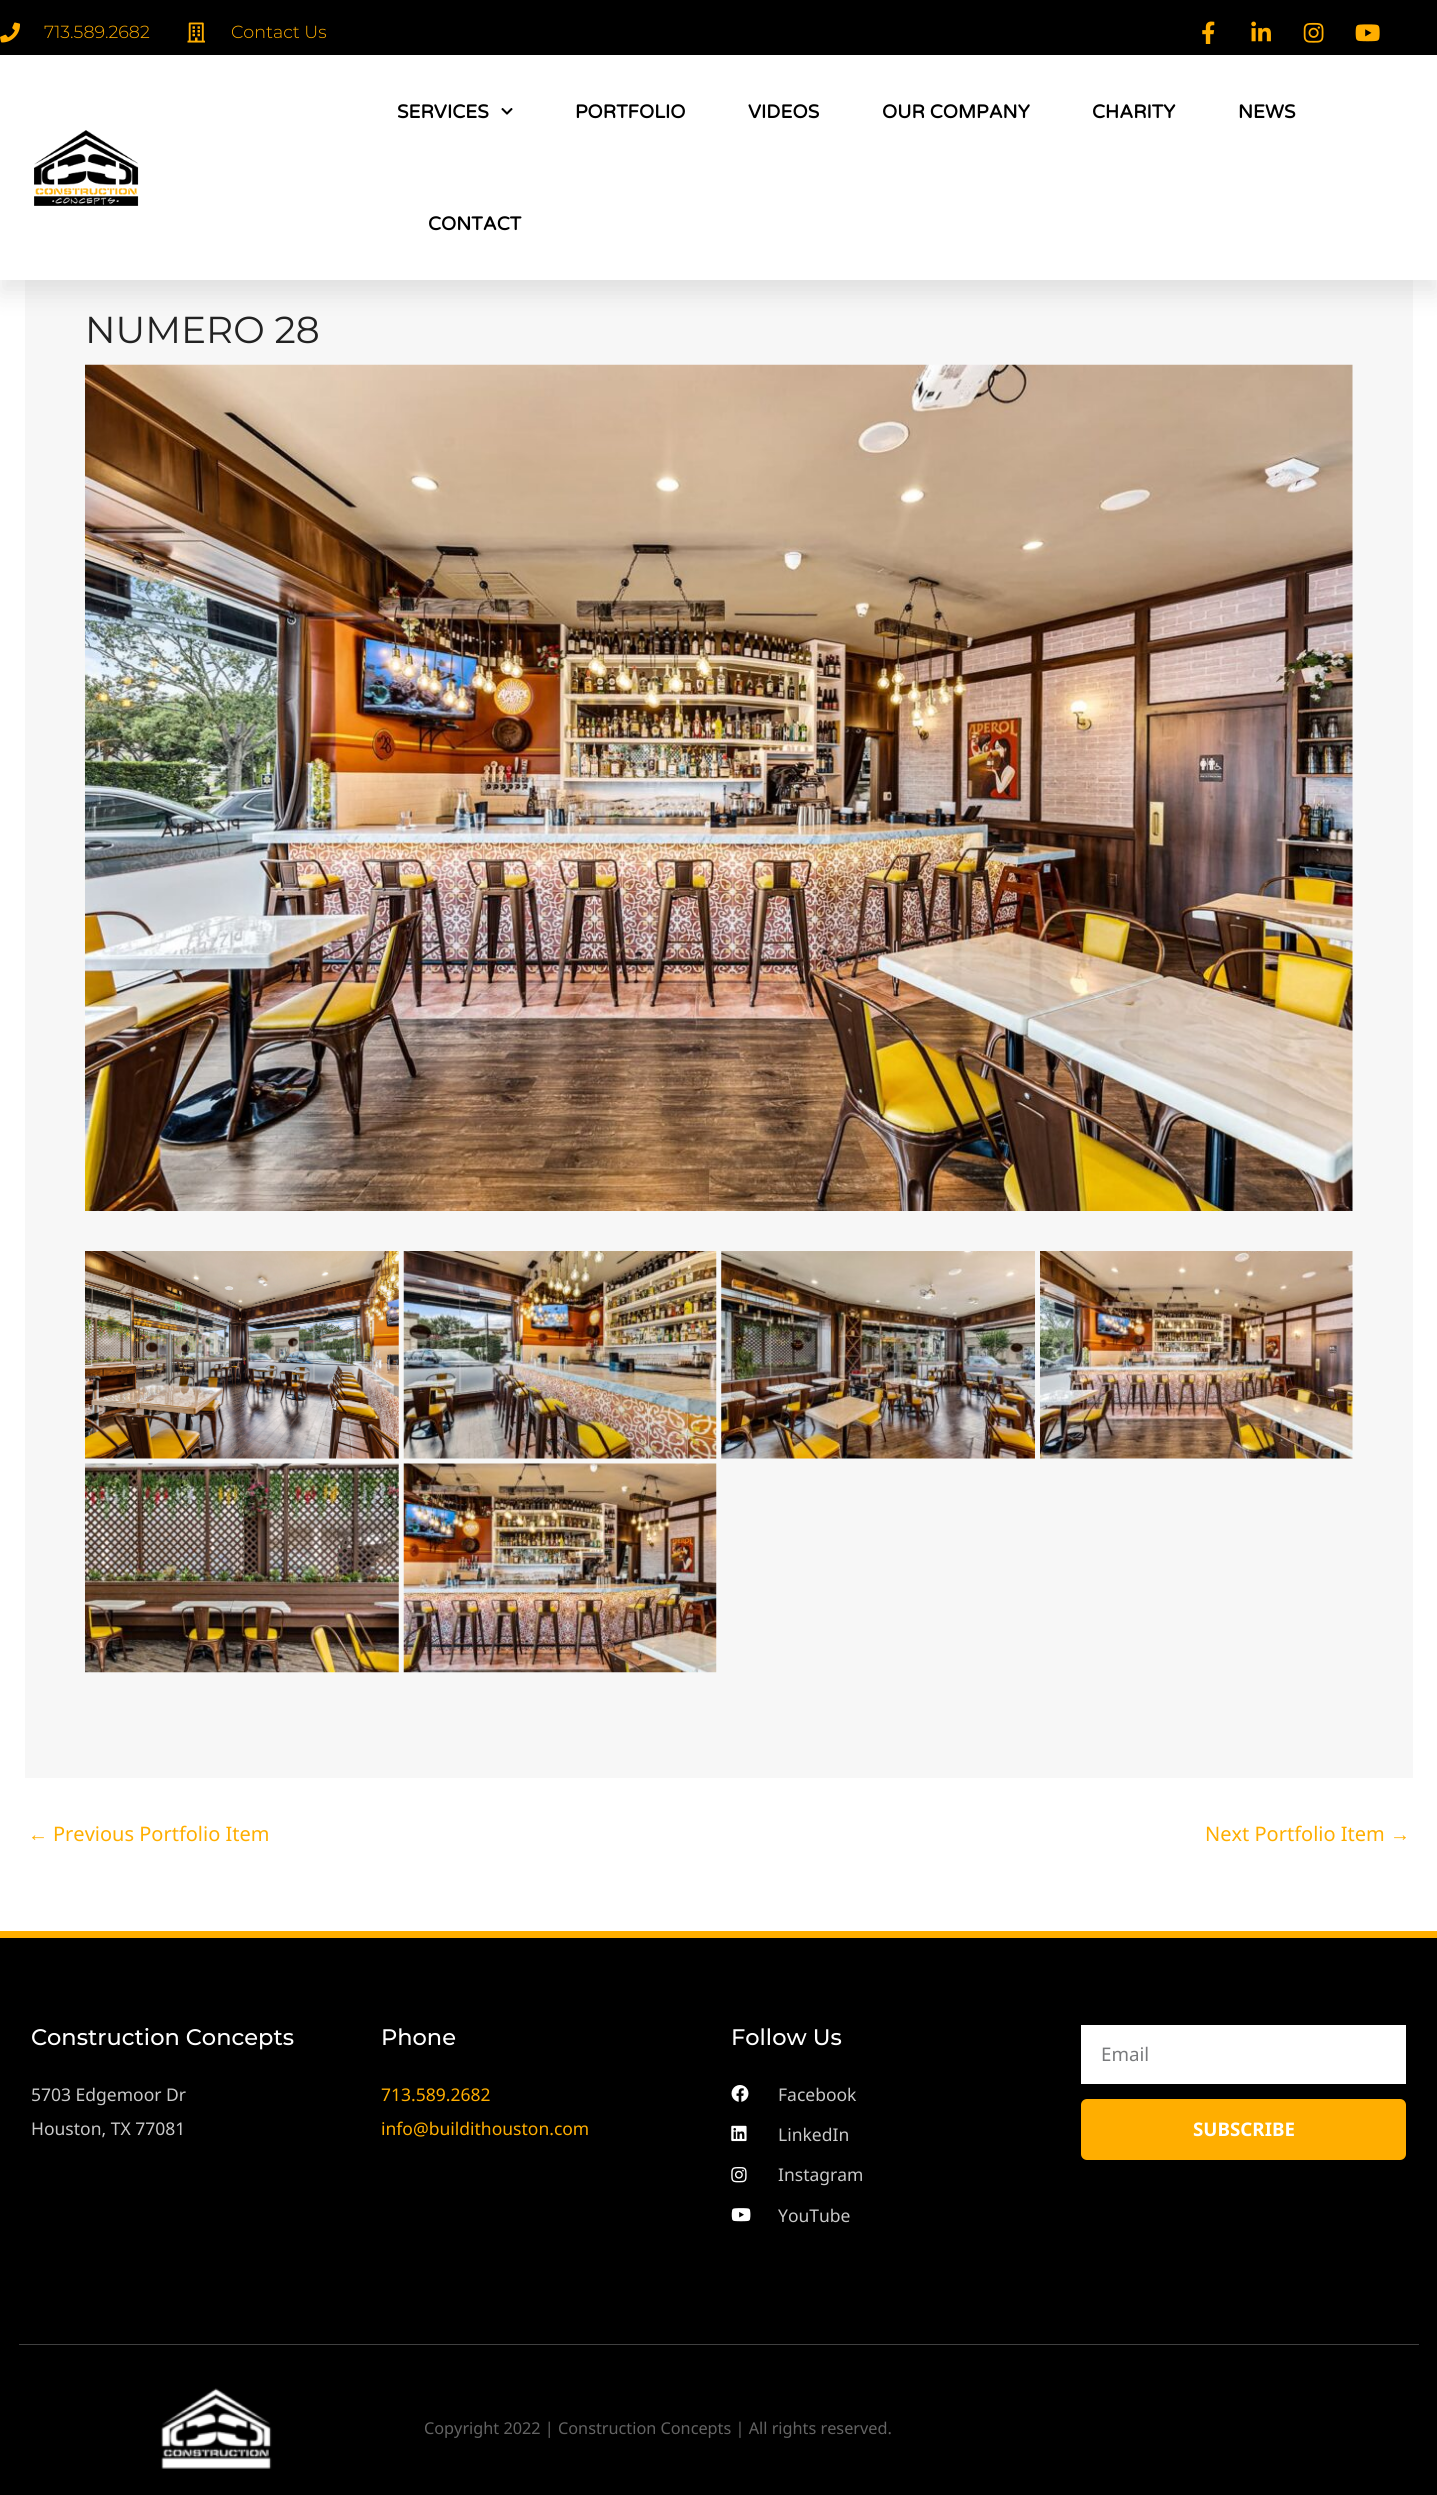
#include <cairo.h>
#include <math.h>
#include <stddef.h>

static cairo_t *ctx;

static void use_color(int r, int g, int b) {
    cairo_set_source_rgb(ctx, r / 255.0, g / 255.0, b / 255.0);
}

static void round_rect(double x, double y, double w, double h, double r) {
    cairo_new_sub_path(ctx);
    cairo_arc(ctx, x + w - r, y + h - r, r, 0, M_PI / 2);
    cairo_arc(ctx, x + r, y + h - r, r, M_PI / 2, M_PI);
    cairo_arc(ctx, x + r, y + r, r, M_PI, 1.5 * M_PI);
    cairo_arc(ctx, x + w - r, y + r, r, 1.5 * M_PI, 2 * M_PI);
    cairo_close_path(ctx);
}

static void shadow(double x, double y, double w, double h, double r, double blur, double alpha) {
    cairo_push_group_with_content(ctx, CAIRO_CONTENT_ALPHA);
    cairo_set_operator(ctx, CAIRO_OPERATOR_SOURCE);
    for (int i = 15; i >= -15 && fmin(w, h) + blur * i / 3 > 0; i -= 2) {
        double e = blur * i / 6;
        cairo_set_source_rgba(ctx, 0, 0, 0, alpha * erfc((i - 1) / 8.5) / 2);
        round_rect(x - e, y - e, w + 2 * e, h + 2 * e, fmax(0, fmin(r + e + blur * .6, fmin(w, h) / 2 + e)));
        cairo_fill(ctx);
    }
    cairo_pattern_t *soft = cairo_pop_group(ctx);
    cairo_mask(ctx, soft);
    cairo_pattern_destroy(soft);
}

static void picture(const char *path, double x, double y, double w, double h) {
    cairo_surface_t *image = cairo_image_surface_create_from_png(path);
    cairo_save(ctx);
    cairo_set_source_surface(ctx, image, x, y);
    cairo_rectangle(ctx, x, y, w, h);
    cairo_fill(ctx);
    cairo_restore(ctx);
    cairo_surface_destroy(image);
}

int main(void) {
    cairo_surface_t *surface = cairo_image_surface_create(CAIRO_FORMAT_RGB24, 1437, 2495);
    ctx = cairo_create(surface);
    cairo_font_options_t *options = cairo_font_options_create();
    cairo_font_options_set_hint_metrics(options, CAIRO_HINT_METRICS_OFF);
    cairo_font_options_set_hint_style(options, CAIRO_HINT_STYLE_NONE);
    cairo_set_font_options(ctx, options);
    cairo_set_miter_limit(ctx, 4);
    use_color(255, 255, 255);
    cairo_paint(ctx);
    use_color(0, 0, 0);
    cairo_rectangle(ctx, 0, 0, 1437, 55);
    cairo_fill(ctx);
    picture("img1.png", 0, 22, 20, 21);
    cairo_select_font_face(ctx, "Montserrat Light", CAIRO_FONT_SLANT_NORMAL, CAIRO_FONT_WEIGHT_NORMAL);
    cairo_set_font_size(ctx, 17.5);
    use_color(255, 174, 0);
    cairo_move_to(ctx, 44, 38);
    cairo_show_text(ctx, "713.589.2682");
    picture("img2.png", 187, 22, 18, 21);
    cairo_move_to(ctx, 231, 38);
    cairo_show_text(ctx, "Contact Us");
    picture("img3.png", 1202, 21, 13, 23);
    picture("img4.png", 1251, 21, 20, 21);
    picture("img5.png", 1303, 22, 21, 21);
    picture("img6.png", 1355, 24, 25, 18);
    use_color(247, 247, 247);
    cairo_rectangle(ctx, 25, 280, 1388, 1498);
    cairo_fill(ctx);
    use_color(0, 0, 0);
    shadow(0, 68, 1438, 225, 0, 12.5, 0.1);
    use_color(255, 255, 255);
    cairo_rectangle(ctx, 0, 55, 1437, 225);
    cairo_fill(ctx);
    picture("img7.png", 34, 130, 105, 76);
    cairo_select_font_face(ctx, "Varela Round", CAIRO_FONT_SLANT_NORMAL, CAIRO_FONT_WEIGHT_BOLD);
    cairo_set_font_size(ctx, 18.75);
    use_color(0, 0, 0);
    cairo_move_to(ctx, 397, 118);
    cairo_show_text(ctx, "SERVICES");
    picture("img8.png", 501, 108, 12, 7);
    cairo_move_to(ctx, 575, 118);
    cairo_show_text(ctx, "PORTFOLIO");
    cairo_move_to(ctx, 748, 118);
    cairo_show_text(ctx, "VIDEOS");
    cairo_move_to(ctx, 882, 118);
    cairo_show_text(ctx, "OUR COMPANY");
    cairo_move_to(ctx, 1092, 118);
    cairo_show_text(ctx, "CHARITY");
    cairo_move_to(ctx, 1238, 118);
    cairo_show_text(ctx, "NEWS");
    cairo_move_to(ctx, 428, 230);
    cairo_show_text(ctx, "CONTACT");
    cairo_select_font_face(ctx, "Montserrat", CAIRO_FONT_SLANT_NORMAL, CAIRO_FONT_WEIGHT_NORMAL);
    cairo_set_font_size(ctx, 37.5);
    use_color(34, 34, 34);
    cairo_move_to(ctx, 85, 343);
    cairo_show_text(ctx, "NUMERO 28");
    picture("img9.png", 85, 364, 1268, 847);
    picture("img10.png", 85, 1251, 314, 208);
    picture("img11.png", 403, 1251, 314, 208);
    picture("img12.png", 721, 1251, 314, 208);
    picture("img13.png", 1040, 1251, 313, 208);
    picture("img14.png", 85, 1463, 314, 210);
    picture("img15.png", 403, 1463, 314, 210);
    cairo_select_font_face(ctx, "Liberation Sans", CAIRO_FONT_SLANT_NORMAL, CAIRO_FONT_WEIGHT_NORMAL);
    cairo_set_font_size(ctx, 20);
    use_color(255, 174, 0);
    cairo_move_to(ctx, 28, 1841);
    cairo_show_text(ctx, "←");
    cairo_select_font_face(ctx, "Noto Sans", CAIRO_FONT_SLANT_NORMAL, CAIRO_FONT_WEIGHT_NORMAL);
    cairo_move_to(ctx, 53, 1841);
    cairo_show_text(ctx, "Previous Portfolio Item");
    cairo_move_to(ctx, 1205, 1841);
    cairo_show_text(ctx, "Next Portfolio Item");
    cairo_select_font_face(ctx, "Liberation Sans", CAIRO_FONT_SLANT_NORMAL, CAIRO_FONT_WEIGHT_NORMAL);
    cairo_move_to(ctx, 1390, 1841);
    cairo_show_text(ctx, "→");
    use_color(0, 0, 0);
    cairo_rectangle(ctx, 0, 1938, 1437, 557);
    cairo_fill(ctx);
    use_color(255, 174, 0);
    cairo_rectangle(ctx, 0, 1931, 1437, 7);
    cairo_fill(ctx);
    cairo_select_font_face(ctx, "Montserrat Medium", CAIRO_FONT_SLANT_NORMAL, CAIRO_FONT_WEIGHT_NORMAL);
    cairo_set_font_size(ctx, 22.5);
    use_color(255, 255, 255);
    cairo_move_to(ctx, 31, 2045);
    cairo_show_text(ctx, "Construction Concepts");
    cairo_select_font_face(ctx, "Noto Sans", CAIRO_FONT_SLANT_NORMAL, CAIRO_FONT_WEIGHT_NORMAL);
    cairo_set_font_size(ctx, 17.5);
    use_color(201, 201, 201);
    cairo_move_to(ctx, 31, 2101);
    cairo_show_text(ctx, "5703 Edgemoor Dr");
    cairo_move_to(ctx, 31, 2135);
    cairo_show_text(ctx, "Houston, TX 77081");
    cairo_select_font_face(ctx, "Montserrat Medium", CAIRO_FONT_SLANT_NORMAL, CAIRO_FONT_WEIGHT_NORMAL);
    cairo_set_font_size(ctx, 22.5);
    use_color(255, 255, 255);
    cairo_move_to(ctx, 381, 2045);
    cairo_show_text(ctx, "Phone");
    cairo_select_font_face(ctx, "Noto Sans", CAIRO_FONT_SLANT_NORMAL, CAIRO_FONT_WEIGHT_NORMAL);
    cairo_set_font_size(ctx, 17.5);
    use_color(255, 174, 0);
    cairo_move_to(ctx, 381, 2101);
    cairo_show_text(ctx, "713.589.2682");
    cairo_move_to(ctx, 381, 2135);
    cairo_show_text(ctx, "info@buildithouston.com");
    cairo_select_font_face(ctx, "Montserrat Medium", CAIRO_FONT_SLANT_NORMAL, CAIRO_FONT_WEIGHT_NORMAL);
    cairo_set_font_size(ctx, 22.5);
    use_color(255, 255, 255);
    cairo_move_to(ctx, 731, 2045);
    cairo_show_text(ctx, "Follow Us");
    picture("img16.png", 731, 2085, 18, 17);
    cairo_select_font_face(ctx, "Noto Sans", CAIRO_FONT_SLANT_NORMAL, CAIRO_FONT_WEIGHT_NORMAL);
    cairo_set_font_size(ctx, 17.5);
    use_color(201, 201, 201);
    cairo_move_to(ctx, 778, 2101);
    cairo_show_text(ctx, "Facebook");
    picture("img17.png", 731, 2125, 16, 17);
    cairo_move_to(ctx, 778, 2141);
    cairo_show_text(ctx, "LinkedIn");
    picture("img18.png", 731, 2167, 16, 16);
    cairo_move_to(ctx, 778, 2181);
    cairo_show_text(ctx, "Instagram");
    picture("img19.png", 731, 2208, 20, 14);
    cairo_move_to(ctx, 778, 2222);
    cairo_show_text(ctx, "YouTube");
    use_color(255, 255, 255);
    cairo_rectangle(ctx, 1081, 2025, 325, 59);
    cairo_fill(ctx);
    cairo_set_font_size(ctx, 18.75);
    use_color(121, 122, 124);
    cairo_move_to(ctx, 1101, 2061);
    cairo_show_text(ctx, "Email");
    use_color(255, 174, 0);
    round_rect(1081, 2099, 325, 61, 6);
    cairo_fill(ctx);
    cairo_select_font_face(ctx, "Noto Sans", CAIRO_FONT_SLANT_NORMAL, CAIRO_FONT_WEIGHT_BOLD);
    use_color(255, 255, 255);
    cairo_move_to(ctx, 1193, 2136);
    cairo_show_text(ctx, "SUBSCRIBE");
    use_color(64, 64, 64);
    cairo_rectangle(ctx, 19, 2344, 1400, 1);
    cairo_fill(ctx);
    picture("img20.png", 161, 2388, 111, 81);
    cairo_select_font_face(ctx, "Noto Sans", CAIRO_FONT_SLANT_NORMAL, CAIRO_FONT_WEIGHT_NORMAL);
    cairo_set_font_size(ctx, 16.25);
    use_color(99, 99, 99);
    cairo_move_to(ctx, 424, 2434);
    cairo_show_text(ctx, "Copyright 2022 | Construction Concepts | All rights reserved.");
    cairo_surface_write_to_png(surface, "result.png");
    cairo_font_options_destroy(options);
    cairo_destroy(ctx);
    cairo_surface_destroy(surface);
    return 0;
}
